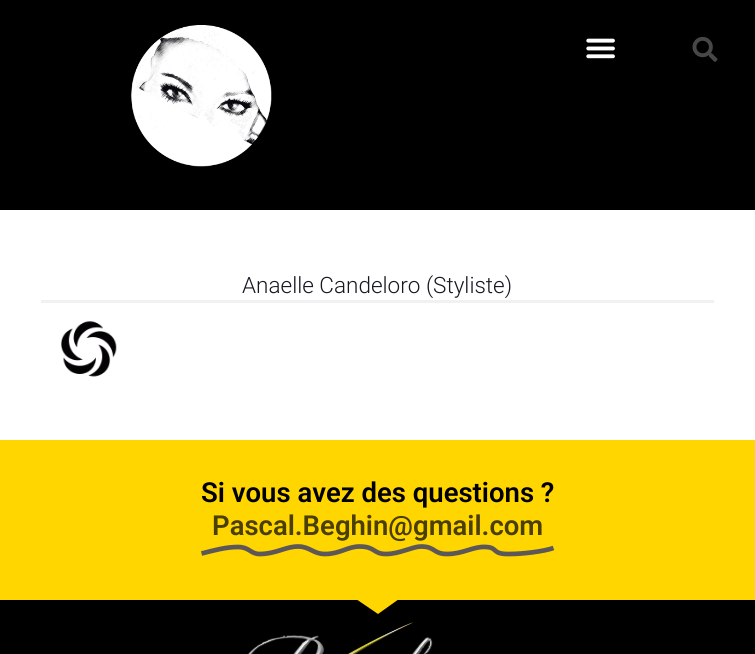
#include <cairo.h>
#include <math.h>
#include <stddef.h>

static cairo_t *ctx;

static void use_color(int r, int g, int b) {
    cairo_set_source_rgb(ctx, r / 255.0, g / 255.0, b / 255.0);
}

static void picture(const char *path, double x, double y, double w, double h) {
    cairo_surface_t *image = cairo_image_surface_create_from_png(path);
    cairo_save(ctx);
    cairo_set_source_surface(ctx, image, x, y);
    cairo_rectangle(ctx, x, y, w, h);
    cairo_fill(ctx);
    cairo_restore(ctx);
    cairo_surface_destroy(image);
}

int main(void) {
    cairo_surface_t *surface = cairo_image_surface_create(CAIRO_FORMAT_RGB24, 755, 654);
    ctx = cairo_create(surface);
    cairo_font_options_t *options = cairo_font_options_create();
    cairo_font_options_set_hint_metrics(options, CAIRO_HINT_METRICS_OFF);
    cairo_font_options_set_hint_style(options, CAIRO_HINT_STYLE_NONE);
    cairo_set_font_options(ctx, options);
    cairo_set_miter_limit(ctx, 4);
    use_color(255, 255, 255);
    cairo_paint(ctx);
    use_color(0, 0, 0);
    cairo_rectangle(ctx, 0, 0, 755, 210);
    cairo_fill(ctx);
    picture("img1.png", 131, 25, 141, 142);
    picture("img2.png", 586, 38, 29, 21);
    picture("img3.png", 692, 36, 26, 26);
    use_color(241, 241, 241);
    cairo_rectangle(ctx, 41, 300, 673, 3);
    cairo_fill(ctx);
    cairo_select_font_face(ctx, "Roboto Light", CAIRO_FONT_SLANT_NORMAL, CAIRO_FONT_WEIGHT_NORMAL);
    cairo_set_font_size(ctx, 22.5);
    use_color(22, 25, 34);
    cairo_move_to(ctx, 242, 293);
    cairo_show_text(ctx, "Anaelle Candeloro (Styliste)");
    picture("img4.png", 60, 321, 57, 56);
    use_color(255, 214, 0);
    cairo_rectangle(ctx, 0, 440, 755, 160);
    cairo_fill(ctx);
    cairo_select_font_face(ctx, "Roboto SemiBold", CAIRO_FONT_SLANT_NORMAL, CAIRO_FONT_WEIGHT_NORMAL);
    cairo_set_font_size(ctx, 27.5);
    use_color(0, 0, 0);
    cairo_move_to(ctx, 201, 502);
    cairo_show_text(ctx, "Si vous avez des questions ?");
    use_color(74, 62, 0);
    cairo_move_to(ctx, 212, 535);
    cairo_show_text(ctx, "Pascal.Beghin@gmail.com");
    cairo_new_path(ctx);
    cairo_move_to(ctx, 201.5, 553.5);
    cairo_curve_to(ctx, 213.5, 550.5, 225.5, 547, 238, 547);
    cairo_curve_to(ctx, 249.5, 547, 250.5, 554, 259.5, 554);
    cairo_curve_to(ctx, 276, 554, 285.5, 546.5, 298, 546.5);
    cairo_curve_to(ctx, 310, 546.5, 313, 554, 325, 554);
    cairo_curve_to(ctx, 340, 554, 347.5, 546.5, 359.5, 546.5);
    cairo_curve_to(ctx, 375.5, 546.5, 373, 554, 386, 554);
    cairo_curve_to(ctx, 399.5, 554, 412.5, 546.5, 421, 546.5);
    cairo_curve_to(ctx, 435.5, 546.5, 433, 554, 447, 554);
    cairo_curve_to(ctx, 463.5, 554, 473.5, 546, 486, 547);
    cairo_curve_to(ctx, 498.5, 547.5, 491, 554.5, 510, 554);
    cairo_curve_to(ctx, 522, 554, 543.5, 551.5, 553.5, 548);
    use_color(93, 87, 87);
    cairo_set_line_width(ctx, 4.7);
    cairo_stroke(ctx);
    use_color(0, 0, 0);
    cairo_rectangle(ctx, 0, 600, 755, 54);
    cairo_fill(ctx);
    use_color(255, 214, 0);
    cairo_new_path(ctx);
    cairo_move_to(ctx, 378, 614);
    cairo_line_to(ctx, 356, 599);
    cairo_line_to(ctx, 399, 599);
    cairo_close_path(ctx);
    cairo_fill(ctx);
    picture("img5.png", 248, 622, 185, 32);
    cairo_surface_write_to_png(surface, "result.png");
    cairo_font_options_destroy(options);
    cairo_destroy(ctx);
    cairo_surface_destroy(surface);
    return 0;
}
